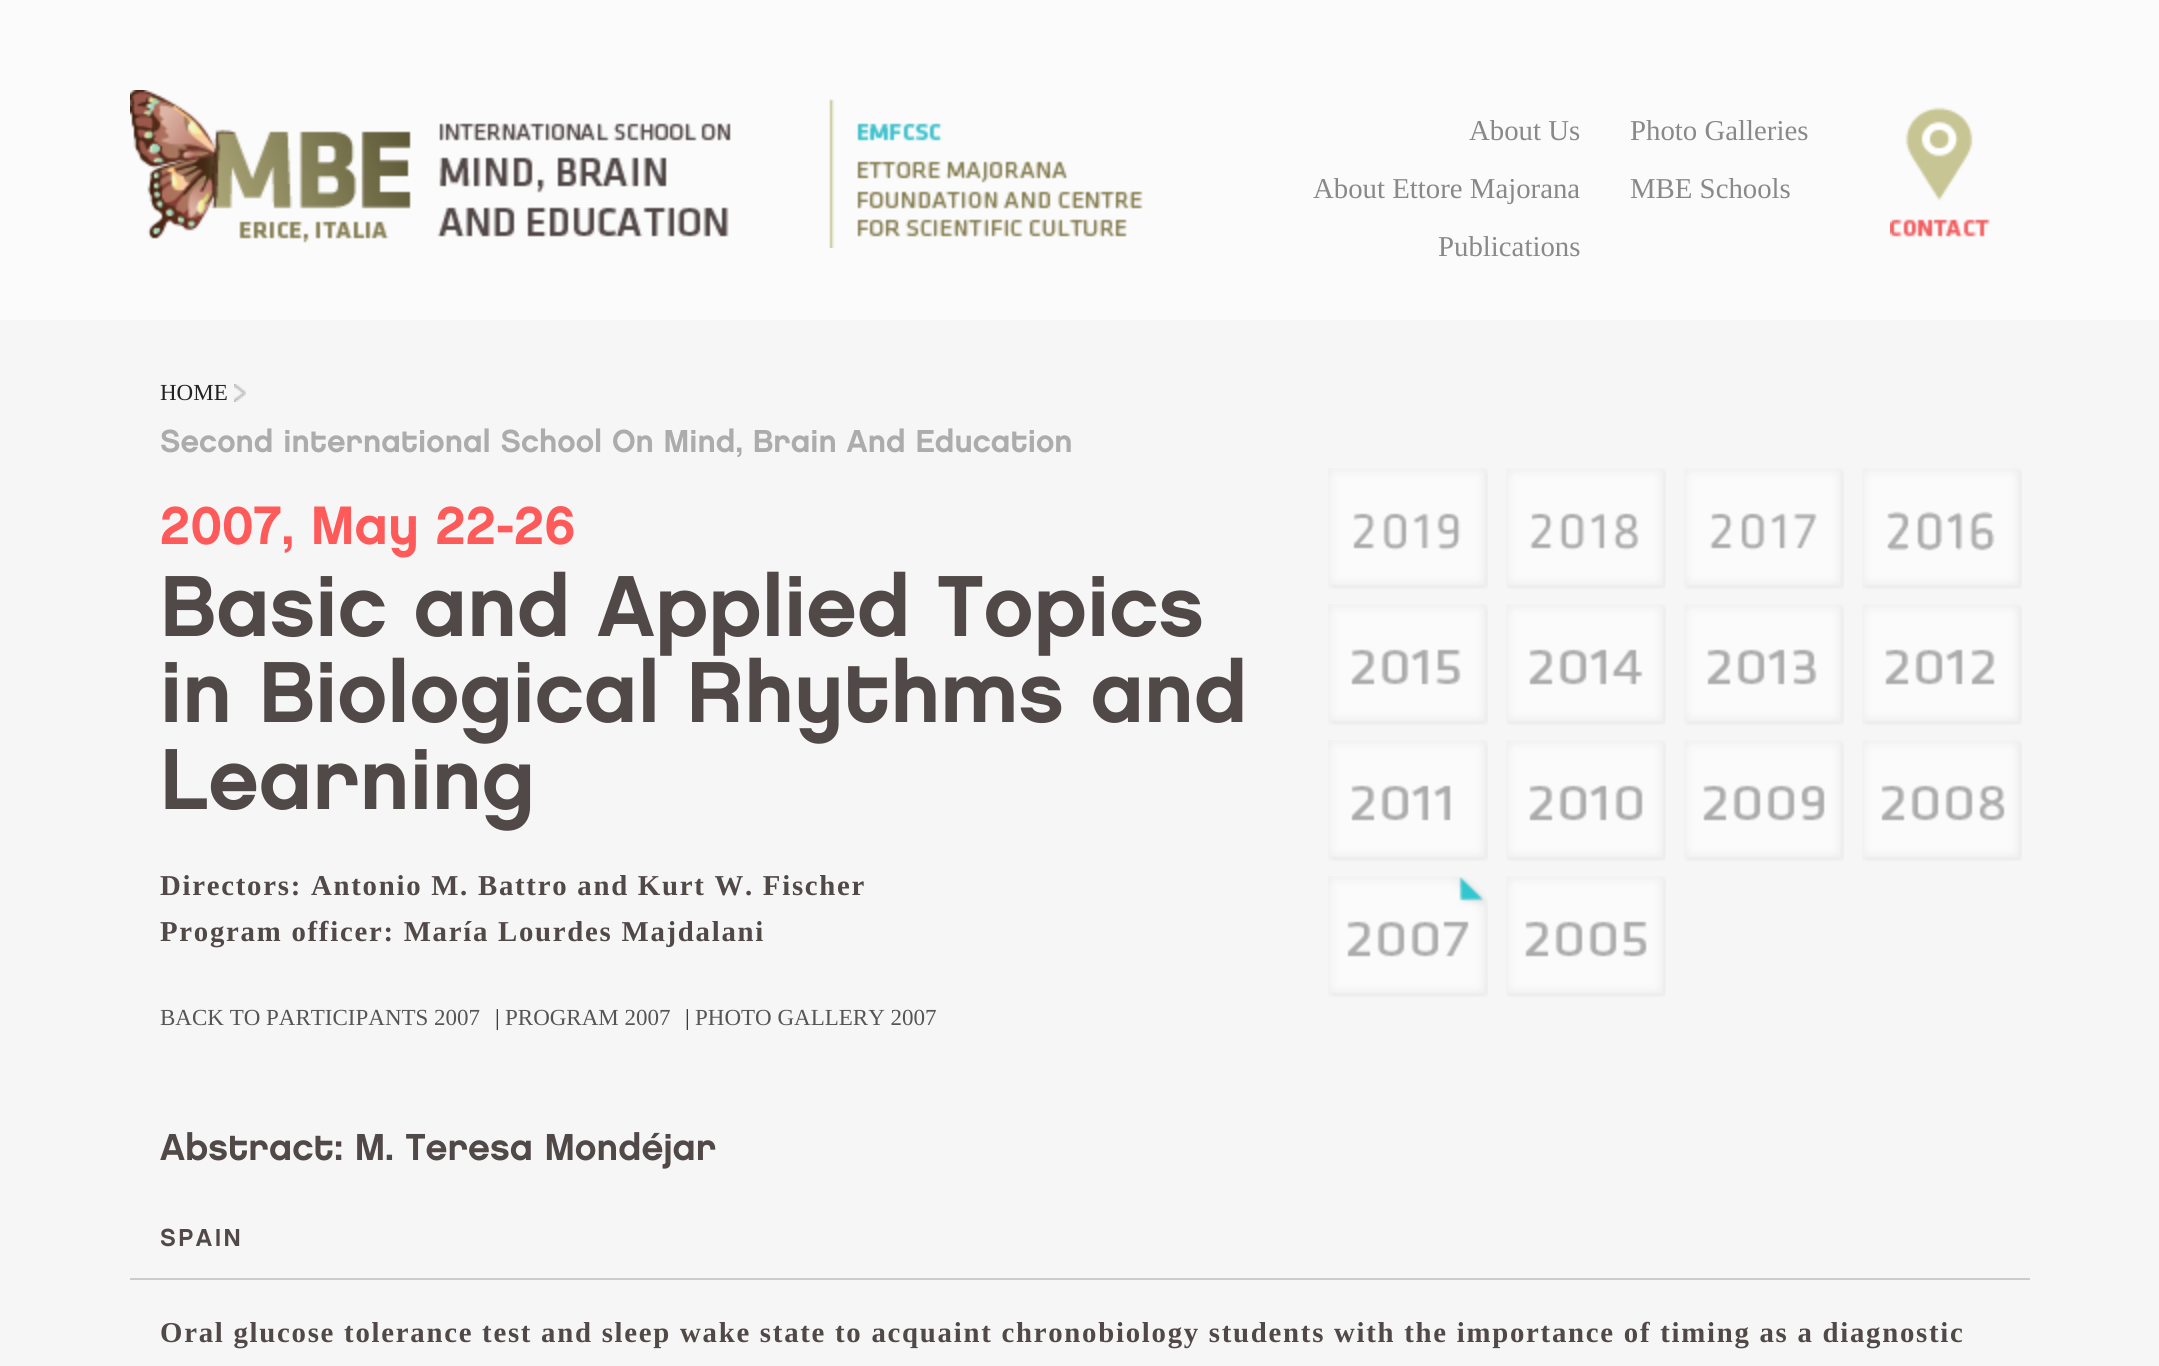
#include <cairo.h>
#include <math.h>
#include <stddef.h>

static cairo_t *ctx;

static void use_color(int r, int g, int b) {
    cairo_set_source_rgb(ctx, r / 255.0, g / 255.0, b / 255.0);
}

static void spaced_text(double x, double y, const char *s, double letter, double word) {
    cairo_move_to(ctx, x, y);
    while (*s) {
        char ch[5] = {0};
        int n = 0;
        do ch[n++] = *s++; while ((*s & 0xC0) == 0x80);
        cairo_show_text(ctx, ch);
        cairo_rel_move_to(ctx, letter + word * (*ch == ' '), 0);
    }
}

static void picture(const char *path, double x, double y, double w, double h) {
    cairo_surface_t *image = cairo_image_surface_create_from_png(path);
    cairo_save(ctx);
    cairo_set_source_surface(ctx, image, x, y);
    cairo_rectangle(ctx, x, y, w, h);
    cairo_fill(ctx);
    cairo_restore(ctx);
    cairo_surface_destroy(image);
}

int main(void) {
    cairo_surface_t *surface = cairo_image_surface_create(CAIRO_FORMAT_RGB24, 2159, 1366);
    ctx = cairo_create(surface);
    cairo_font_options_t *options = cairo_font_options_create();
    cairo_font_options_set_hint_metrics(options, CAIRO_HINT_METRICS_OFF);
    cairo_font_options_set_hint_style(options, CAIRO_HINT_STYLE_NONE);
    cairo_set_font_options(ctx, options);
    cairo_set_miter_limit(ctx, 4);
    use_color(251, 251, 251);
    cairo_paint(ctx);
    picture("img1.png", 130, 90, 601, 153);
    picture("img2.png", 829, 99, 314, 149);
    cairo_select_font_face(ctx, "Liberation Serif", CAIRO_FONT_SLANT_NORMAL, CAIRO_FONT_WEIGHT_NORMAL);
    cairo_set_font_size(ctx, 28.8);
    use_color(137, 137, 137);
    cairo_move_to(ctx, 1469, 140);
    cairo_show_text(ctx, "About Us");
    cairo_move_to(ctx, 1630, 140);
    cairo_show_text(ctx, "Photo Galleries");
    picture("img3.png", 1890, 107, 100, 130);
    cairo_move_to(ctx, 1313, 198);
    cairo_show_text(ctx, "About Ettore Majorana");
    cairo_move_to(ctx, 1630, 198);
    cairo_show_text(ctx, "MBE Schools");
    cairo_move_to(ctx, 1438, 256);
    cairo_show_text(ctx, "Publications");
    use_color(246, 246, 247);
    cairo_rectangle(ctx, 0, 320, 2159, 1046);
    cairo_fill(ctx);
    cairo_set_font_size(ctx, 23);
    use_color(34, 34, 34);
    cairo_move_to(ctx, 160, 400);
    cairo_show_text(ctx, "HOME");
    picture("img4.png", 234, 384, 12, 18);
    cairo_select_font_face(ctx, "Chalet", CAIRO_FONT_SLANT_NORMAL, CAIRO_FONT_WEIGHT_NORMAL);
    cairo_set_font_size(ctx, 31.7);
    use_color(172, 172, 172);
    cairo_move_to(ctx, 160, 452);
    cairo_show_text(ctx, "Second international School On Mind, Brain And Education");
    cairo_set_font_size(ctx, 54);
    use_color(255, 90, 90);
    cairo_move_to(ctx, 160, 544);
    cairo_show_text(ctx, "2007, May 22-26");
    picture("img5.png", 1328, 468, 160, 121);
    picture("img6.png", 1506, 468, 160, 121);
    picture("img7.png", 1684, 468, 160, 121);
    picture("img8.png", 1862, 468, 160, 121);
    picture("img9.png", 1328, 604, 160, 121);
    picture("img10.png", 1506, 604, 160, 121);
    picture("img11.png", 1684, 604, 160, 121);
    picture("img12.png", 1862, 604, 160, 121);
    picture("img13.png", 1328, 740, 160, 121);
    picture("img14.png", 1506, 740, 160, 121);
    picture("img15.png", 1684, 740, 160, 121);
    picture("img16.png", 1862, 740, 160, 121);
    picture("img17.png", 1328, 876, 160, 121);
    picture("img18.png", 1506, 876, 160, 121);
    cairo_set_font_size(ctx, 86.4);
    use_color(81, 72, 72);
    cairo_move_to(ctx, 160, 636);
    cairo_show_text(ctx, "Basic and Applied Topics");
    cairo_move_to(ctx, 160, 722);
    cairo_show_text(ctx, "in Biological Rhythms and");
    cairo_move_to(ctx, 160, 809);
    cairo_show_text(ctx, "Learning");
    cairo_select_font_face(ctx, "Liberation Serif", CAIRO_FONT_SLANT_NORMAL, CAIRO_FONT_WEIGHT_BOLD);
    cairo_set_font_size(ctx, 28.8);
    spaced_text(160, 895, "Directors: Antonio M. Battro and Kurt W. Fischer", 1.73, 0);
    spaced_text(160, 941, "Program officer: María Lourdes Majdalani", 1.73, 0);
    cairo_select_font_face(ctx, "Liberation Serif", CAIRO_FONT_SLANT_NORMAL, CAIRO_FONT_WEIGHT_NORMAL);
    cairo_set_font_size(ctx, 23);
    use_color(85, 85, 85);
    cairo_move_to(ctx, 160, 1025);
    cairo_show_text(ctx, "BACK TO PARTICIPANTS 2007");
    use_color(34, 34, 34);
    cairo_move_to(ctx, 495, 1025);
    cairo_show_text(ctx, "|");
    use_color(85, 85, 85);
    cairo_move_to(ctx, 505, 1025);
    cairo_show_text(ctx, "PROGRAM 2007");
    use_color(34, 34, 34);
    cairo_move_to(ctx, 685, 1025);
    cairo_show_text(ctx, "|");
    use_color(85, 85, 85);
    cairo_move_to(ctx, 695, 1025);
    cairo_show_text(ctx, "PHOTO GALLERY 2007");
    cairo_select_font_face(ctx, "Chalet", CAIRO_FONT_SLANT_NORMAL, CAIRO_FONT_WEIGHT_NORMAL);
    cairo_set_font_size(ctx, 37.5);
    use_color(81, 72, 72);
    cairo_move_to(ctx, 160, 1160);
    cairo_show_text(ctx, "Abstract: M. Teresa Mondéjar");
    cairo_set_font_size(ctx, 24.5);
    spaced_text(160, 1246, "SPAIN", 2.5, 0);
    use_color(204, 204, 204);
    cairo_rectangle(ctx, 130, 1278, 1900, 2);
    cairo_fill(ctx);
    cairo_select_font_face(ctx, "Liberation Serif", CAIRO_FONT_SLANT_NORMAL, CAIRO_FONT_WEIGHT_BOLD);
    cairo_set_font_size(ctx, 28.8);
    use_color(81, 72, 72);
    spaced_text(160, 1342, "Oral glucose tolerance test and sleep wake state to acquaint chronobiology students with the importance of timing as a diagnostic", 1.73, 0);
    cairo_surface_write_to_png(surface, "result.png");
    cairo_font_options_destroy(options);
    cairo_destroy(ctx);
    cairo_surface_destroy(surface);
    return 0;
}
